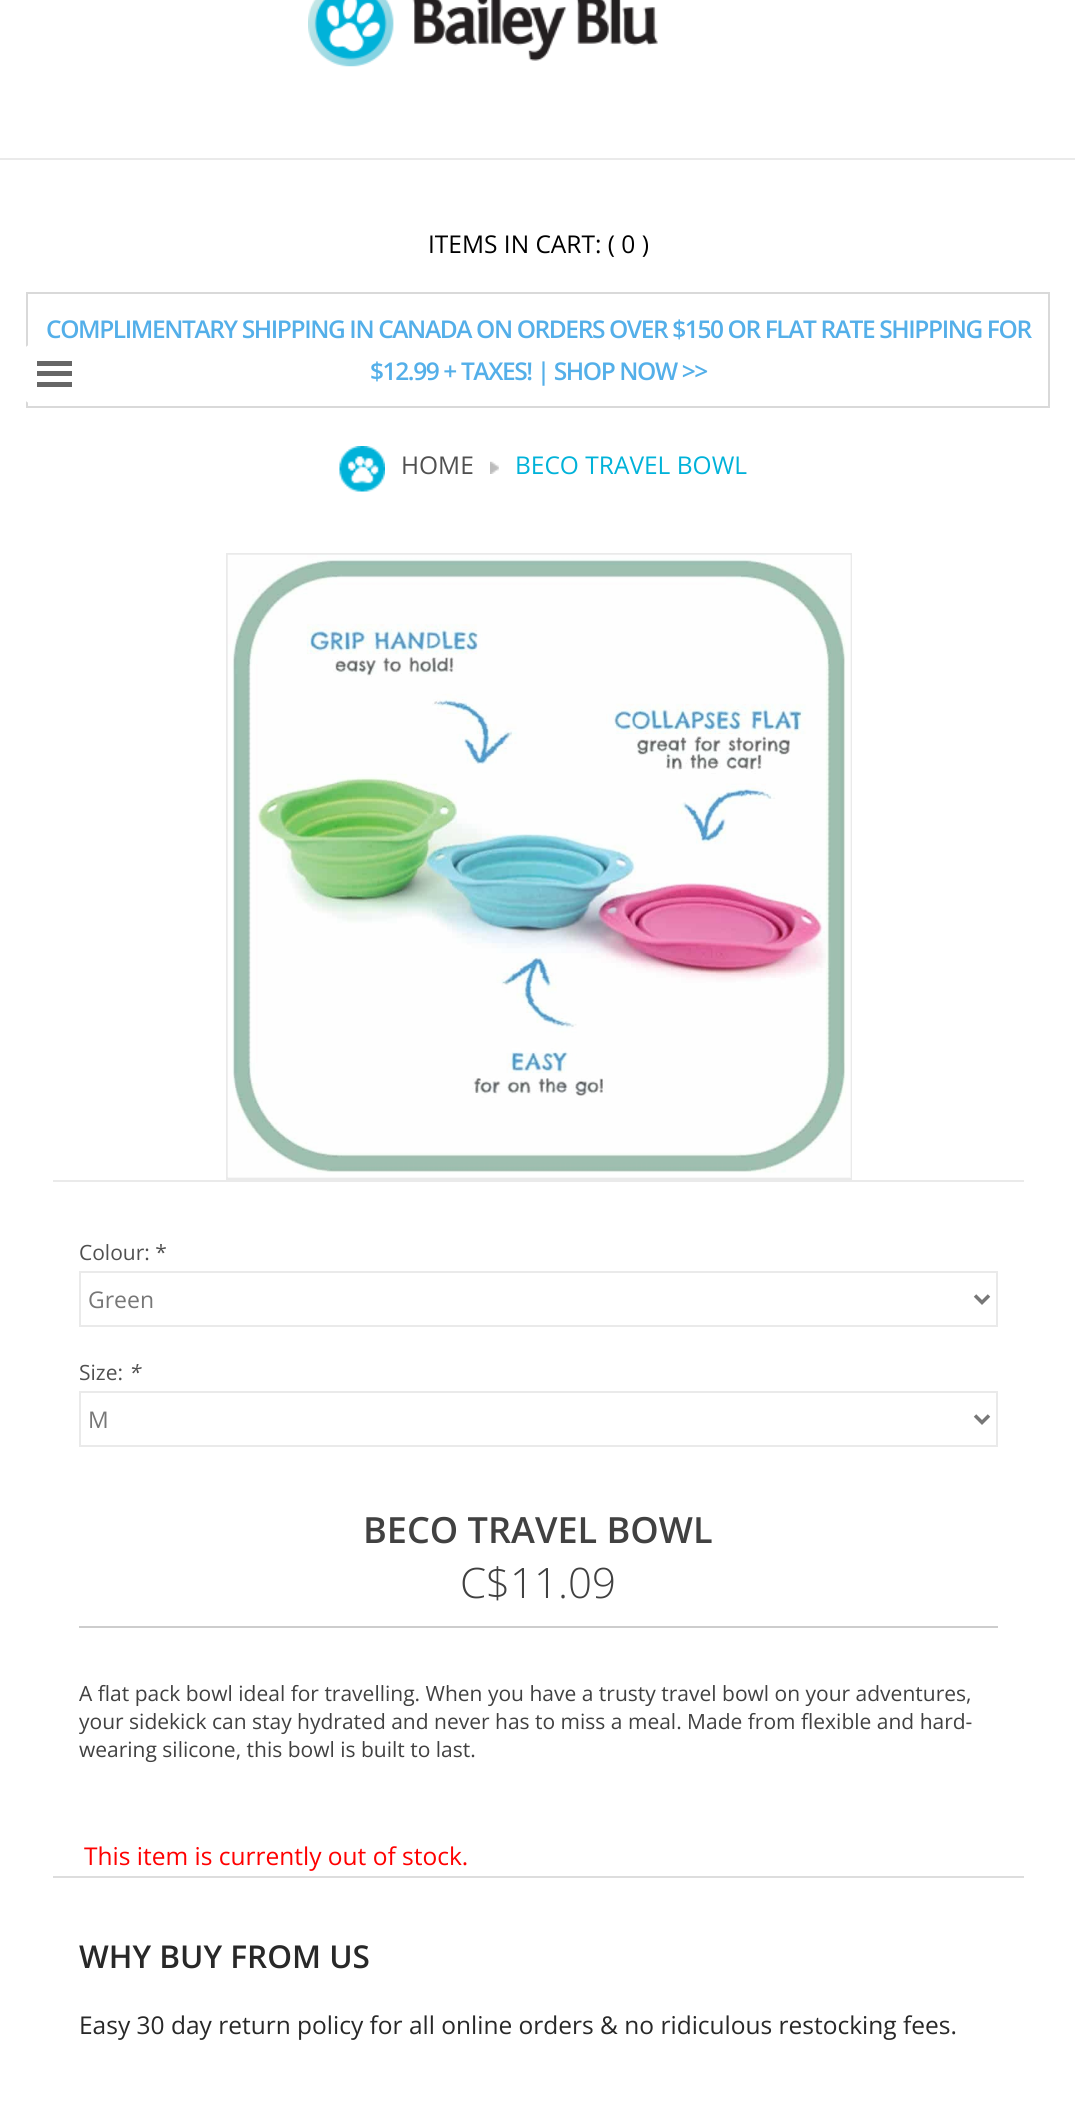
#include <cairo.h>
#include <math.h>
#include <stddef.h>

static cairo_t *ctx;

static void use_color(int r, int g, int b) {
    cairo_set_source_rgb(ctx, r / 255.0, g / 255.0, b / 255.0);
}

static void spaced_text(double x, double y, const char *s, double letter, double word) {
    cairo_move_to(ctx, x, y);
    while (*s) {
        char ch[5] = {0};
        int n = 0;
        do ch[n++] = *s++; while ((*s & 0xC0) == 0x80);
        cairo_show_text(ctx, ch);
        cairo_rel_move_to(ctx, letter + word * (*ch == ' '), 0);
    }
}

static void round_rect(double x, double y, double w, double h, double r) {
    cairo_new_sub_path(ctx);
    cairo_arc(ctx, x + w - r, y + h - r, r, 0, M_PI / 2);
    cairo_arc(ctx, x + r, y + h - r, r, M_PI / 2, M_PI);
    cairo_arc(ctx, x + r, y + r, r, M_PI, 1.5 * M_PI);
    cairo_arc(ctx, x + w - r, y + r, r, 1.5 * M_PI, 2 * M_PI);
    cairo_close_path(ctx);
}

static void picture(const char *path, double x, double y, double w, double h) {
    cairo_surface_t *image = cairo_image_surface_create_from_png(path);
    cairo_save(ctx);
    cairo_set_source_surface(ctx, image, x, y);
    cairo_rectangle(ctx, x, y, w, h);
    cairo_fill(ctx);
    cairo_restore(ctx);
    cairo_surface_destroy(image);
}

int main(void) {
    cairo_surface_t *surface = cairo_image_surface_create(CAIRO_FORMAT_RGB24, 1075, 2121);
    ctx = cairo_create(surface);
    cairo_font_options_t *options = cairo_font_options_create();
    cairo_font_options_set_hint_metrics(options, CAIRO_HINT_METRICS_OFF);
    cairo_font_options_set_hint_style(options, CAIRO_HINT_STYLE_NONE);
    cairo_set_font_options(ctx, options);
    cairo_set_miter_limit(ctx, 4);
    use_color(255, 255, 255);
    cairo_paint(ctx);
    picture("img1.png", 308, 0, 350, 67);
    use_color(234, 234, 234);
    cairo_rectangle(ctx, 0, 158, 1075, 2);
    cairo_fill(ctx);
    cairo_select_font_face(ctx, "Open Sans", CAIRO_FONT_SLANT_NORMAL, CAIRO_FONT_WEIGHT_NORMAL);
    cairo_set_font_size(ctx, 24.5);
    use_color(0, 0, 0);
    cairo_move_to(ctx, 428, 253);
    cairo_show_text(ctx, "ITEMS IN CART: ( 0 )");
    cairo_rectangle(ctx, 27, 293, 1022, 114);
    use_color(217, 217, 217);
    cairo_stroke(ctx);
    cairo_select_font_face(ctx, "Open Sans SemiBold", CAIRO_FONT_SLANT_NORMAL, CAIRO_FONT_WEIGHT_NORMAL);
    use_color(84, 175, 233);
    spaced_text(46, 338, "COMPLIMENTARY SHIPPING IN CANADA ON ORDERS OVER $150 OR FLAT RATE SHIPPING FOR", -1.4, 0);
    spaced_text(370, 380, "$12.99 + TAXES! | SHOP NOW >>", -1.4, 0);
    picture("img2.png", 339, 446, 46, 46);
    cairo_select_font_face(ctx, "Open Sans", CAIRO_FONT_SLANT_NORMAL, CAIRO_FONT_WEIGHT_NORMAL);
    use_color(80, 80, 80);
    cairo_move_to(ctx, 401, 474);
    cairo_show_text(ctx, "HOME");
    picture("img3.png", 490, 461, 9, 13);
    use_color(0, 178, 217);
    cairo_move_to(ctx, 515, 474);
    cairo_show_text(ctx, "BECO TRAVEL BOWL");
    cairo_rectangle(ctx, 227, 554, 624, 625);
    use_color(234, 234, 234);
    cairo_stroke(ctx);
    use_color(247, 247, 247);
    cairo_rectangle(ctx, 228, 555, 623, 623);
    cairo_fill(ctx);
    picture("img4.png", 227, 554, 623, 623);
    use_color(234, 234, 234);
    cairo_rectangle(ctx, 53, 1180, 971, 2);
    cairo_fill(ctx);
    cairo_set_font_size(ctx, 21);
    use_color(80, 80, 80);
    cairo_move_to(ctx, 79, 1260);
    cairo_show_text(ctx, "Colour: *");
    cairo_rectangle(ctx, 80, 1272, 917, 54);
    use_color(234, 234, 234);
    cairo_stroke(ctx);
    cairo_new_path(ctx);
    cairo_move_to(ctx, 975, 1295.5);
    cairo_line_to(ctx, 982, 1302.5);
    cairo_line_to(ctx, 989, 1295.5);
    use_color(119, 119, 119);
    cairo_set_line_width(ctx, 3.5);
    cairo_stroke(ctx);
    cairo_set_font_size(ctx, 23);
    cairo_move_to(ctx, 88, 1308);
    cairo_show_text(ctx, "Green");
    cairo_set_font_size(ctx, 21);
    use_color(80, 80, 80);
    cairo_move_to(ctx, 79, 1380);
    cairo_show_text(ctx, "Size:");
    cairo_select_font_face(ctx, "Open Sans", CAIRO_FONT_SLANT_ITALIC, CAIRO_FONT_WEIGHT_NORMAL);
    cairo_move_to(ctx, 128, 1380);
    cairo_show_text(ctx, "*");
    cairo_rectangle(ctx, 80, 1392, 917, 54);
    use_color(234, 234, 234);
    cairo_set_line_width(ctx, 2);
    cairo_stroke(ctx);
    cairo_new_path(ctx);
    cairo_move_to(ctx, 975, 1415.5);
    cairo_line_to(ctx, 982, 1422.5);
    cairo_line_to(ctx, 989, 1415.5);
    use_color(119, 119, 119);
    cairo_set_line_width(ctx, 3.5);
    cairo_stroke(ctx);
    cairo_select_font_face(ctx, "Open Sans", CAIRO_FONT_SLANT_NORMAL, CAIRO_FONT_WEIGHT_NORMAL);
    cairo_set_font_size(ctx, 23);
    cairo_move_to(ctx, 88, 1428);
    cairo_show_text(ctx, "M");
    use_color(205, 205, 205);
    cairo_rectangle(ctx, 79, 1626, 919, 2);
    cairo_fill(ctx);
    cairo_select_font_face(ctx, "Open Sans SemiBold", CAIRO_FONT_SLANT_NORMAL, CAIRO_FONT_WEIGHT_NORMAL);
    cairo_set_font_size(ctx, 36.1);
    use_color(65, 65, 65);
    cairo_move_to(ctx, 363, 1543);
    cairo_show_text(ctx, "BECO TRAVEL BOWL");
    cairo_select_font_face(ctx, "Open Sans Light", CAIRO_FONT_SLANT_NORMAL, CAIRO_FONT_WEIGHT_NORMAL);
    cairo_set_font_size(ctx, 42);
    cairo_move_to(ctx, 460, 1598);
    cairo_show_text(ctx, "C$11.09");
    cairo_select_font_face(ctx, "Open Sans", CAIRO_FONT_SLANT_NORMAL, CAIRO_FONT_WEIGHT_NORMAL);
    cairo_set_font_size(ctx, 21);
    cairo_move_to(ctx, 79, 1701);
    cairo_show_text(ctx, "A flat pack bowl ideal for travelling. When you have a trusty travel bowl on your adventures,");
    cairo_move_to(ctx, 79, 1729);
    cairo_show_text(ctx, "your sidekick can stay hydrated and never has to miss a meal. Made from flexible and hard-");
    cairo_move_to(ctx, 79, 1757);
    cairo_show_text(ctx, "wearing silicone, this bowl is built to last.");
    cairo_set_font_size(ctx, 24.5);
    use_color(255, 0, 0);
    cairo_move_to(ctx, 84, 1865);
    cairo_show_text(ctx, "This item is currently out of stock.");
    use_color(221, 221, 221);
    cairo_rectangle(ctx, 53, 1876, 971, 2);
    cairo_fill(ctx);
    cairo_select_font_face(ctx, "Open Sans SemiBold", CAIRO_FONT_SLANT_NORMAL, CAIRO_FONT_WEIGHT_NORMAL);
    cairo_set_font_size(ctx, 31.5);
    use_color(40, 40, 40);
    cairo_move_to(ctx, 79, 1968);
    cairo_show_text(ctx, "WHY BUY FROM US");
    cairo_select_font_face(ctx, "Open Sans", CAIRO_FONT_SLANT_NORMAL, CAIRO_FONT_WEIGHT_NORMAL);
    cairo_set_font_size(ctx, 24.5);
    cairo_move_to(ctx, 79, 2034);
    cairo_show_text(ctx, "Easy 30 day return policy for all online orders & no ridiculous restocking fees.");
    use_color(255, 255, 255);
    round_rect(25, 345, 59, 58, 5);
    cairo_fill(ctx);
    use_color(102, 102, 102);
    cairo_rectangle(ctx, 37, 361, 35, 5);
    cairo_fill(ctx);
    cairo_rectangle(ctx, 37, 371, 35, 5);
    cairo_fill(ctx);
    cairo_rectangle(ctx, 37, 382, 35, 5);
    cairo_fill(ctx);
    cairo_surface_write_to_png(surface, "result.png");
    cairo_font_options_destroy(options);
    cairo_destroy(ctx);
    cairo_surface_destroy(surface);
    return 0;
}
